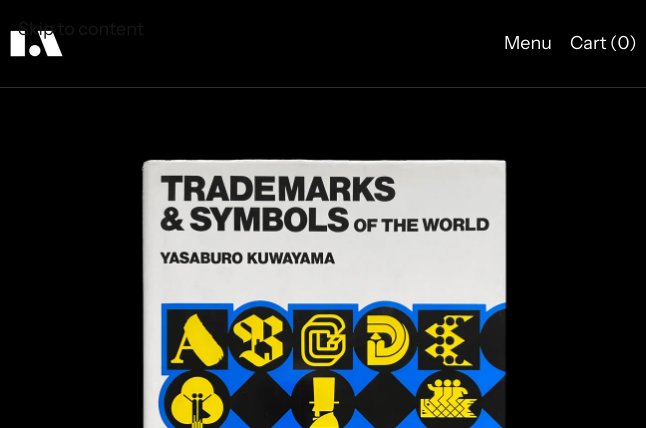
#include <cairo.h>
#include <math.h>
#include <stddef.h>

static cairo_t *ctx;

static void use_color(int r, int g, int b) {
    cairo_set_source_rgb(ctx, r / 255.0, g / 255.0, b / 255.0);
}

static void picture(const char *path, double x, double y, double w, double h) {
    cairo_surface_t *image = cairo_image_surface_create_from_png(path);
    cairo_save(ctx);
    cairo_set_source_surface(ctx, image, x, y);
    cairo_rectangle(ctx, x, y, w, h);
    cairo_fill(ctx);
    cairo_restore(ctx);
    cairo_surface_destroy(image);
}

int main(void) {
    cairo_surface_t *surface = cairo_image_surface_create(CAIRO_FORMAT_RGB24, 646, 428);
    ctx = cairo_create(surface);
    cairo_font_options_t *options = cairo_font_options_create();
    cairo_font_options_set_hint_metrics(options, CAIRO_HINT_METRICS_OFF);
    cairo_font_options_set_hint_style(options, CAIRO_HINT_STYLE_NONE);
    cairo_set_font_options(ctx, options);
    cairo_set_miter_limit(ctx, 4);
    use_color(0, 0, 0);
    cairo_paint(ctx);
    picture("img1.png", 10, 30, 54, 27);
    cairo_select_font_face(ctx, "Instrument Sans", CAIRO_FONT_SLANT_NORMAL, CAIRO_FONT_WEIGHT_NORMAL);
    cairo_set_font_size(ctx, 18);
    use_color(22, 22, 22);
    cairo_move_to(ctx, 18, 35);
    cairo_show_text(ctx, "Skip to content");
    use_color(255, 255, 255);
    cairo_move_to(ctx, 504, 49);
    cairo_show_text(ctx, "Menu");
    cairo_move_to(ctx, 570, 49);
    cairo_show_text(ctx, "Cart (0)");
    use_color(45, 45, 45);
    cairo_rectangle(ctx, 0, 87, 646, 1);
    cairo_fill(ctx);
    picture("img2.png", 141, 157, 366, 271);
    cairo_surface_write_to_png(surface, "result.png");
    cairo_font_options_destroy(options);
    cairo_destroy(ctx);
    cairo_surface_destroy(surface);
    return 0;
}
